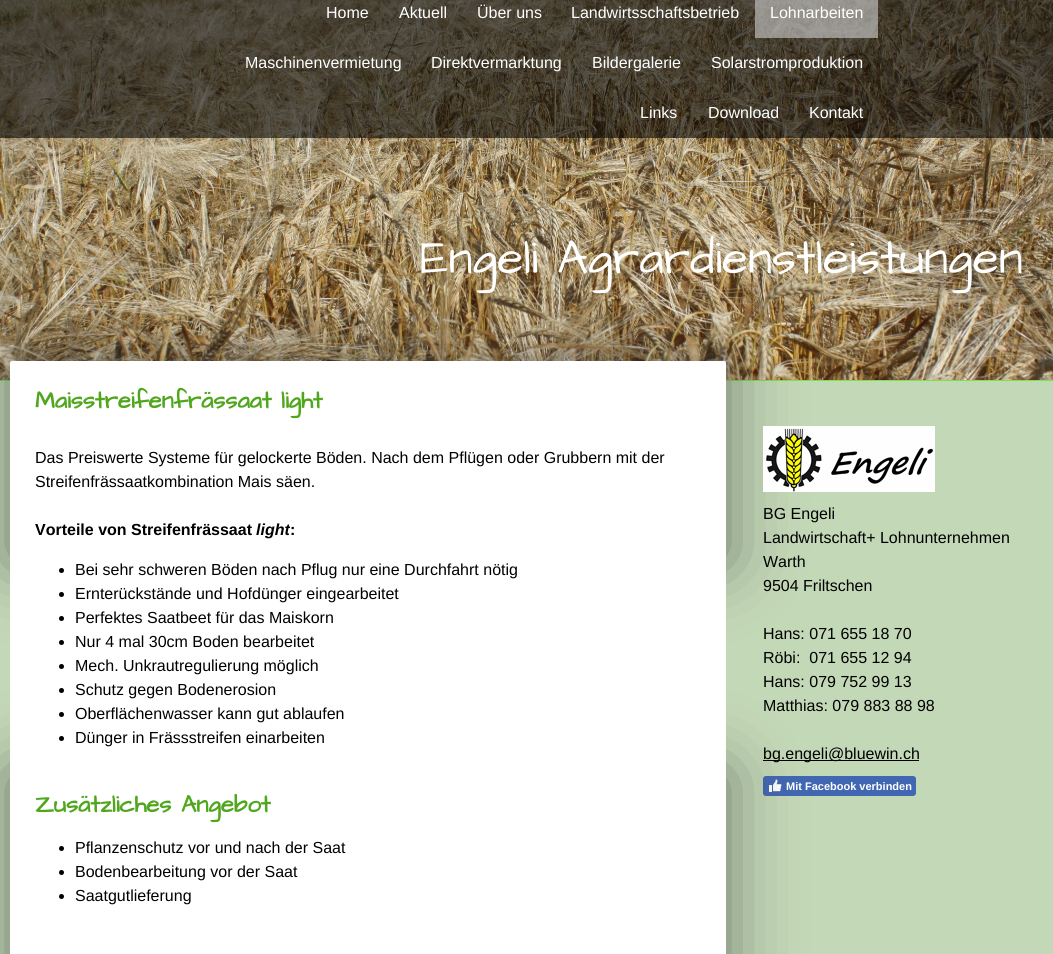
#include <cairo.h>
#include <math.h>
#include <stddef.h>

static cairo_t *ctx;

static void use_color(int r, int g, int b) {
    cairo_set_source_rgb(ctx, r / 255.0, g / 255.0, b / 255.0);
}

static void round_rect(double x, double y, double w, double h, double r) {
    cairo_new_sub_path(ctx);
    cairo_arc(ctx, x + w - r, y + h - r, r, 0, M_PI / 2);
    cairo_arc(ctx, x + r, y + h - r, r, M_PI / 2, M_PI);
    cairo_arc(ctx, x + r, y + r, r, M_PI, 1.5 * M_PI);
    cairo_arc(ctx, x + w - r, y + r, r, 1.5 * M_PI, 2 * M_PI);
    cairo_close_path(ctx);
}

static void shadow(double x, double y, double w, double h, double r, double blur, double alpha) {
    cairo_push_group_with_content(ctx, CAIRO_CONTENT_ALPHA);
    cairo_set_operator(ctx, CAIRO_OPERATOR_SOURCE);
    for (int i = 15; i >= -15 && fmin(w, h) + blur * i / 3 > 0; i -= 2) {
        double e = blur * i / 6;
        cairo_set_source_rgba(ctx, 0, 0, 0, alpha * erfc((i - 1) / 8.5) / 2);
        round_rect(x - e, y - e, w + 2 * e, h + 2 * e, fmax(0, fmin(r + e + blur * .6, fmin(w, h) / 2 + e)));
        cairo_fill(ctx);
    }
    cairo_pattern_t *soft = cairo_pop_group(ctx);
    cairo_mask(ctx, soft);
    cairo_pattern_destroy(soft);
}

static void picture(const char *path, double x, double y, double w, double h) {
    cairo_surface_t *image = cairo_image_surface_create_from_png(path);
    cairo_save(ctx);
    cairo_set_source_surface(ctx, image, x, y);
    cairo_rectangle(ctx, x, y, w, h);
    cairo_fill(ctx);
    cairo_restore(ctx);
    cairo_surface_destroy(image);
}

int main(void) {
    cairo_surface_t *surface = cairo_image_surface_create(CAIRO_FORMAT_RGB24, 1053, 954);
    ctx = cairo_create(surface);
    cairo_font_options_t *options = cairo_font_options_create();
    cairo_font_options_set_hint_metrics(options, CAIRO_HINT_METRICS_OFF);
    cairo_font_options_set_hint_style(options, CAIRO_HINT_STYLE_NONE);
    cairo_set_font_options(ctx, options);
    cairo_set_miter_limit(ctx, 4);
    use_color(255, 255, 255);
    cairo_paint(ctx);
    picture("img1.png", 0, 0, 1053, 380);
    cairo_set_source_rgba(ctx, 0, 0, 0, 0.58);
    cairo_rectangle(ctx, 0, 0, 1053, 138);
    cairo_fill(ctx);
    cairo_select_font_face(ctx, "Liberation Sans", CAIRO_FONT_SLANT_NORMAL, CAIRO_FONT_WEIGHT_NORMAL);
    cairo_set_font_size(ctx, 16);
    use_color(255, 255, 255);
    cairo_move_to(ctx, 326, 18);
    cairo_show_text(ctx, "Home");
    cairo_move_to(ctx, 399, 18);
    cairo_show_text(ctx, "Aktuell");
    cairo_move_to(ctx, 477, 18);
    cairo_show_text(ctx, "Über uns");
    cairo_move_to(ctx, 571, 18);
    cairo_show_text(ctx, "Landwirtsschaftsbetrieb");
    cairo_set_source_rgba(ctx, 0.8, 0.8, 0.8, 0.62);
    cairo_rectangle(ctx, 755, 0, 123, 38);
    cairo_fill(ctx);
    use_color(255, 255, 255);
    cairo_move_to(ctx, 770, 18);
    cairo_show_text(ctx, "Lohnarbeiten");
    cairo_move_to(ctx, 245, 68);
    cairo_show_text(ctx, "Maschinenvermietung");
    cairo_move_to(ctx, 431, 68);
    cairo_show_text(ctx, "Direktvermarktung");
    cairo_move_to(ctx, 592, 68);
    cairo_show_text(ctx, "Bildergalerie");
    cairo_move_to(ctx, 711, 68);
    cairo_show_text(ctx, "Solarstromproduktion");
    cairo_move_to(ctx, 640, 118);
    cairo_show_text(ctx, "Links");
    cairo_move_to(ctx, 708, 118);
    cairo_show_text(ctx, "Download");
    cairo_move_to(ctx, 809, 118);
    cairo_show_text(ctx, "Kontakt");
    cairo_select_font_face(ctx, "Architects Daughter", CAIRO_FONT_SLANT_NORMAL, CAIRO_FONT_WEIGHT_NORMAL);
    cairo_set_font_size(ctx, 48);
    cairo_move_to(ctx, 420, 273);
    cairo_show_text(ctx, "Engeli Agrardienstleistungen");
    use_color(195, 216, 183);
    cairo_rectangle(ctx, 0, 381, 1053, 573);
    cairo_fill(ctx);
    use_color(129, 223, 74);
    cairo_rectangle(ctx, 0, 380, 1053, 1);
    cairo_fill(ctx);
    use_color(51, 51, 51);
    shadow(10, 361, 716, 200, 0, 34, 0.6);
    use_color(0, 0, 0);
    cairo_rectangle(ctx, 763, 760, 156, 1);
    cairo_fill(ctx);
    use_color(66, 103, 178);
    round_rect(763.5, 776.5, 152, 19, 2.5);
    cairo_fill_preserve(ctx);
    cairo_set_line_width(ctx, 1);
    cairo_stroke(ctx);
    picture("img3.png", 769, 779, 13, 13);
    use_color(51, 51, 51);
    shadow(10, 773, 716, 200, 0, 34, 0.6);
    use_color(255, 255, 255);
    round_rect(10, 361, 716, 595, 2);
    cairo_fill(ctx);
    cairo_select_font_face(ctx, "Architects Daughter", CAIRO_FONT_SLANT_NORMAL, CAIRO_FONT_WEIGHT_BOLD);
    cairo_set_font_size(ctx, 24);
    use_color(80, 166, 29);
    cairo_move_to(ctx, 35, 408);
    cairo_show_text(ctx, "Maisstreifenfrässaat light");
    cairo_select_font_face(ctx, "Liberation Sans", CAIRO_FONT_SLANT_NORMAL, CAIRO_FONT_WEIGHT_NORMAL);
    cairo_set_font_size(ctx, 16);
    use_color(0, 0, 0);
    cairo_move_to(ctx, 35, 463);
    cairo_show_text(ctx, "Das Preiswerte Systeme für gelockerte Böden. Nach dem Pflügen oder Grubbern mit der");
    cairo_move_to(ctx, 35, 487);
    cairo_show_text(ctx, "Streifenfrässaatkombination Mais säen.");
    cairo_select_font_face(ctx, "Liberation Sans", CAIRO_FONT_SLANT_NORMAL, CAIRO_FONT_WEIGHT_BOLD);
    cairo_move_to(ctx, 35, 535);
    cairo_show_text(ctx, "Vorteile von Streifenfrässaat");
    cairo_select_font_face(ctx, "Liberation Sans", CAIRO_FONT_SLANT_ITALIC, CAIRO_FONT_WEIGHT_BOLD);
    cairo_move_to(ctx, 256, 535);
    cairo_show_text(ctx, "light");
    cairo_select_font_face(ctx, "Liberation Sans", CAIRO_FONT_SLANT_NORMAL, CAIRO_FONT_WEIGHT_BOLD);
    cairo_move_to(ctx, 290, 535);
    cairo_show_text(ctx, ":");
    cairo_new_path(ctx);
    cairo_arc(ctx, 61.5, 570.5, 2.5, 0, 2 * M_PI);
    cairo_fill(ctx);
    cairo_select_font_face(ctx, "Liberation Sans", CAIRO_FONT_SLANT_NORMAL, CAIRO_FONT_WEIGHT_NORMAL);
    cairo_move_to(ctx, 75, 575);
    cairo_show_text(ctx, "Bei sehr schweren Böden nach Pflug nur eine Durchfahrt nötig");
    cairo_new_path(ctx);
    cairo_arc(ctx, 61.5, 594.5, 2.5, 0, 2 * M_PI);
    cairo_fill(ctx);
    cairo_move_to(ctx, 75, 599);
    cairo_show_text(ctx, "Ernterückstände und Hofdünger eingearbeitet");
    cairo_new_path(ctx);
    cairo_arc(ctx, 61.5, 618.5, 2.5, 0, 2 * M_PI);
    cairo_fill(ctx);
    cairo_move_to(ctx, 75, 623);
    cairo_show_text(ctx, "Perfektes Saatbeet für das Maiskorn");
    cairo_new_path(ctx);
    cairo_arc(ctx, 61.5, 642.5, 2.5, 0, 2 * M_PI);
    cairo_fill(ctx);
    cairo_move_to(ctx, 75, 647);
    cairo_show_text(ctx, "Nur 4 mal 30cm Boden bearbeitet");
    cairo_new_path(ctx);
    cairo_arc(ctx, 61.5, 666.5, 2.5, 0, 2 * M_PI);
    cairo_fill(ctx);
    cairo_move_to(ctx, 75, 671);
    cairo_show_text(ctx, "Mech. Unkrautregulierung möglich");
    cairo_new_path(ctx);
    cairo_arc(ctx, 61.5, 690.5, 2.5, 0, 2 * M_PI);
    cairo_fill(ctx);
    cairo_move_to(ctx, 75, 695);
    cairo_show_text(ctx, "Schutz gegen Bodenerosion");
    cairo_new_path(ctx);
    cairo_arc(ctx, 61.5, 714.5, 2.5, 0, 2 * M_PI);
    cairo_fill(ctx);
    cairo_move_to(ctx, 75, 719);
    cairo_show_text(ctx, "Oberflächenwasser kann gut ablaufen");
    cairo_new_path(ctx);
    cairo_arc(ctx, 61.5, 738.5, 2.5, 0, 2 * M_PI);
    cairo_fill(ctx);
    cairo_move_to(ctx, 75, 743);
    cairo_show_text(ctx, "Dünger in Frässstreifen einarbeiten");
    cairo_select_font_face(ctx, "Architects Daughter", CAIRO_FONT_SLANT_NORMAL, CAIRO_FONT_WEIGHT_BOLD);
    cairo_set_font_size(ctx, 24);
    use_color(80, 166, 29);
    cairo_move_to(ctx, 35, 812);
    cairo_show_text(ctx, "Zusätzliches Angebot");
    use_color(0, 0, 0);
    cairo_new_path(ctx);
    cairo_arc(ctx, 61.5, 848.5, 2.5, 0, 2 * M_PI);
    cairo_fill(ctx);
    cairo_select_font_face(ctx, "Liberation Sans", CAIRO_FONT_SLANT_NORMAL, CAIRO_FONT_WEIGHT_NORMAL);
    cairo_set_font_size(ctx, 16);
    cairo_move_to(ctx, 75, 853);
    cairo_show_text(ctx, "Pflanzenschutz vor und nach der Saat");
    cairo_new_path(ctx);
    cairo_arc(ctx, 61.5, 872.5, 2.5, 0, 2 * M_PI);
    cairo_fill(ctx);
    cairo_move_to(ctx, 75, 877);
    cairo_show_text(ctx, "Bodenbearbeitung vor der Saat");
    cairo_new_path(ctx);
    cairo_arc(ctx, 61.5, 896.5, 2.5, 0, 2 * M_PI);
    cairo_fill(ctx);
    cairo_move_to(ctx, 75, 901);
    cairo_show_text(ctx, "Saatgutlieferung");
    picture("img2.png", 763, 426, 172, 66);
    cairo_move_to(ctx, 763, 519);
    cairo_show_text(ctx, "BG Engeli");
    cairo_move_to(ctx, 763, 543);
    cairo_show_text(ctx, "Landwirtschaft+ Lohnunternehmen");
    cairo_move_to(ctx, 763, 567);
    cairo_show_text(ctx, "Warth");
    cairo_move_to(ctx, 763, 591);
    cairo_show_text(ctx, "9504 Friltschen");
    cairo_move_to(ctx, 763, 639);
    cairo_show_text(ctx, "Hans: 071 655 18 70");
    cairo_move_to(ctx, 763, 663);
    cairo_show_text(ctx, "Röbi:  071 655 12 94");
    cairo_move_to(ctx, 763, 687);
    cairo_show_text(ctx, "Hans: 079 752 99 13");
    cairo_move_to(ctx, 763, 711);
    cairo_show_text(ctx, "Matthias: 079 883 88 98");
    cairo_move_to(ctx, 763, 759);
    cairo_show_text(ctx, "bg.engeli@bluewin.ch");
    cairo_select_font_face(ctx, "Liberation Sans", CAIRO_FONT_SLANT_NORMAL, CAIRO_FONT_WEIGHT_BOLD);
    cairo_set_font_size(ctx, 11);
    use_color(255, 255, 255);
    cairo_move_to(ctx, 786, 790);
    cairo_show_text(ctx, "Mit Facebook verbinden");
    cairo_surface_write_to_png(surface, "result.png");
    cairo_font_options_destroy(options);
    cairo_destroy(ctx);
    cairo_surface_destroy(surface);
    return 0;
}
